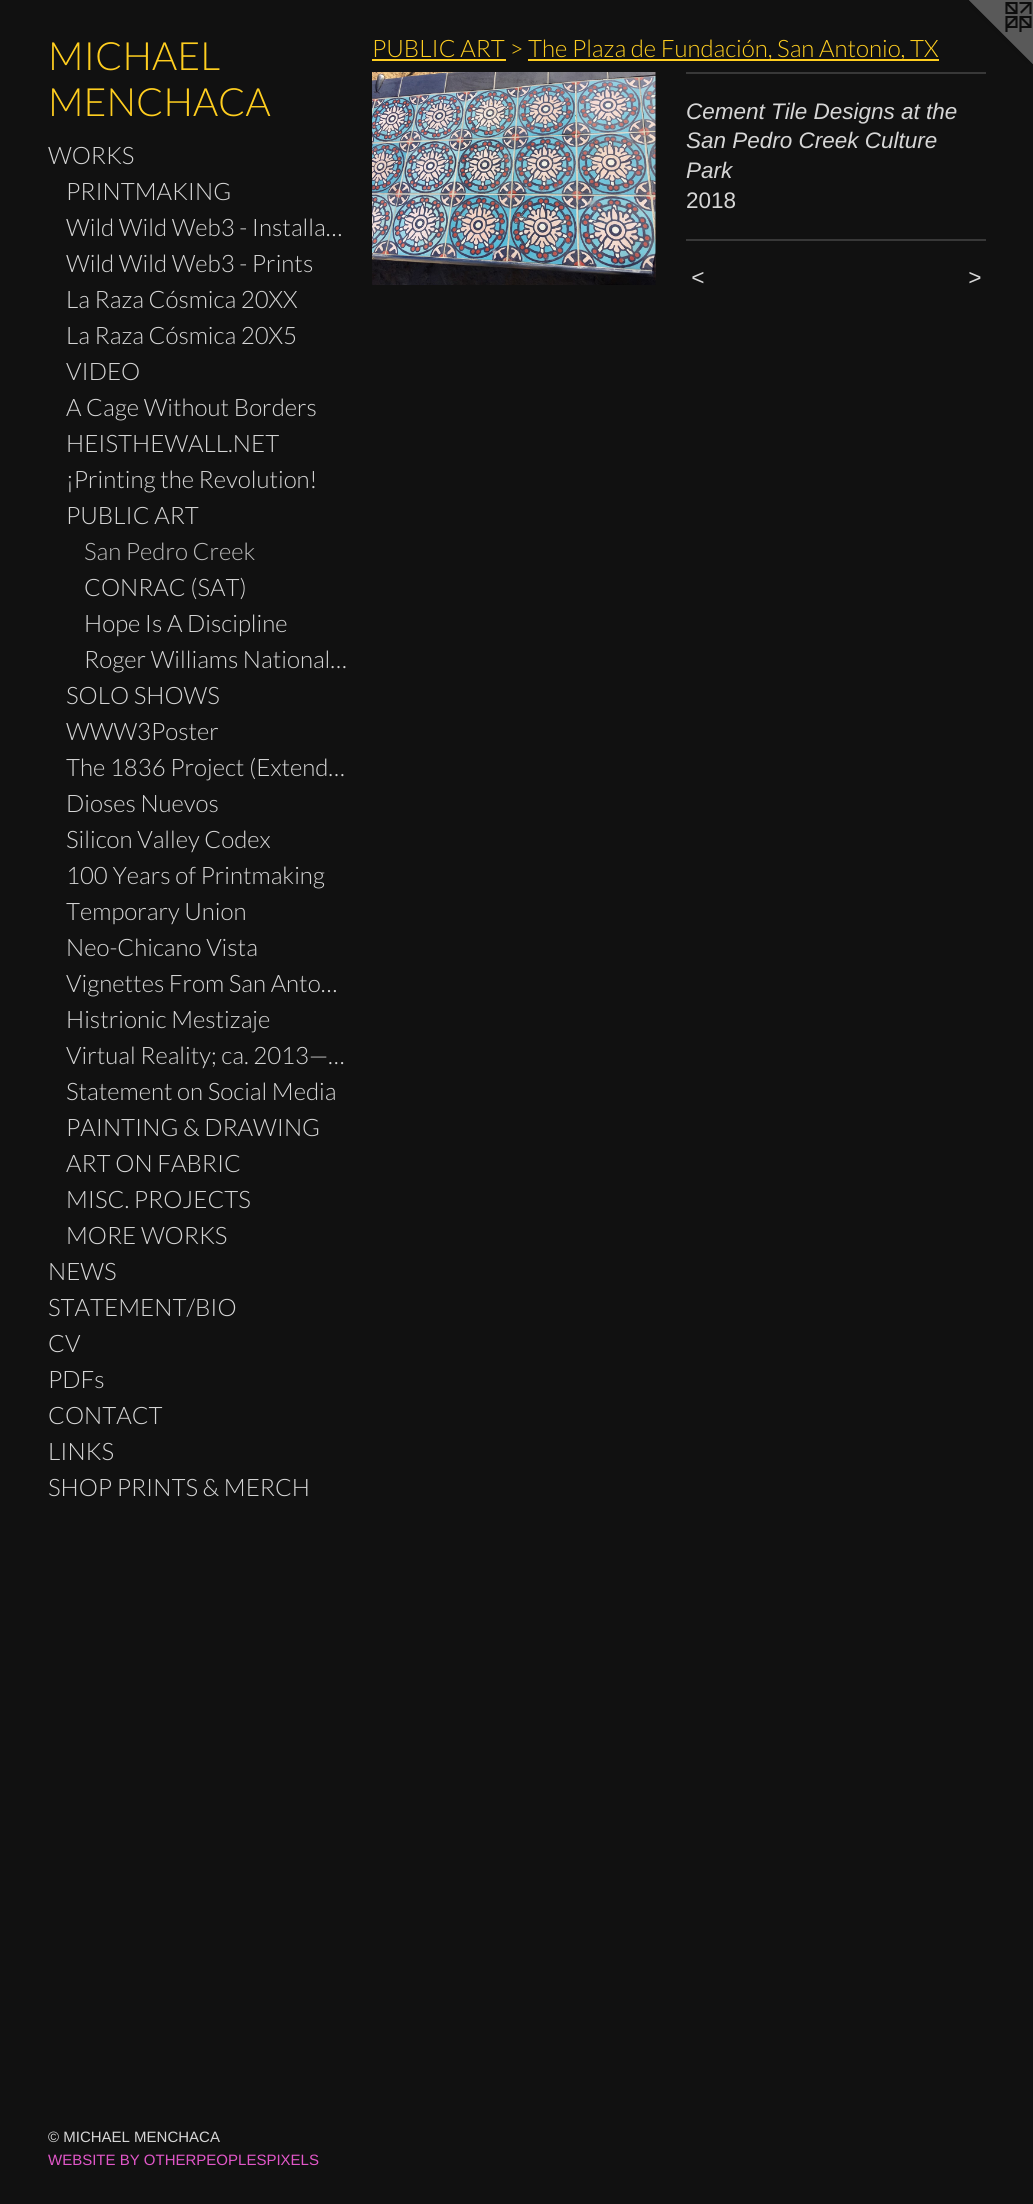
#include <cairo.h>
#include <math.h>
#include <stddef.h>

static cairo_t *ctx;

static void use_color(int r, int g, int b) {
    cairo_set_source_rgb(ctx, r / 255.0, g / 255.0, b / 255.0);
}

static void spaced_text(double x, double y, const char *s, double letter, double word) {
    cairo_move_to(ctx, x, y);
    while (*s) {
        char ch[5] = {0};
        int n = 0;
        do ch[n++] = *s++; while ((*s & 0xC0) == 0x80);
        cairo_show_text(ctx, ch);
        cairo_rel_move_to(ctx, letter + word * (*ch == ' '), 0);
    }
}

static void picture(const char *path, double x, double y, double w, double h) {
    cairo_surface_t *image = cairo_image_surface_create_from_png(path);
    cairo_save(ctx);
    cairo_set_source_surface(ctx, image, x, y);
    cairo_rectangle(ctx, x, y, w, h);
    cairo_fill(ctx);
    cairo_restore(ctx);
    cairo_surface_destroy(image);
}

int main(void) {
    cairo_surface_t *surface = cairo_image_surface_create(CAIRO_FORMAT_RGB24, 1033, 2204);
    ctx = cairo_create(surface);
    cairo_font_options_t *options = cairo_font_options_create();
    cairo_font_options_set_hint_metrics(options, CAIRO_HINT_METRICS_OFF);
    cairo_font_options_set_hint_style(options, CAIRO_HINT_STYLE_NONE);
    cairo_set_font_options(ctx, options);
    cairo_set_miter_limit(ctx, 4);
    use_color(17, 17, 17);
    cairo_paint(ctx);
    cairo_select_font_face(ctx, "Lato Light", CAIRO_FONT_SLANT_NORMAL, CAIRO_FONT_WEIGHT_NORMAL);
    cairo_set_font_size(ctx, 39);
    use_color(255, 206, 31);
    cairo_move_to(ctx, 48, 70);
    cairo_show_text(ctx, "MICHAEL");
    cairo_move_to(ctx, 48, 116);
    cairo_show_text(ctx, "MENCHACA");
    cairo_set_font_size(ctx, 24);
    use_color(214, 214, 214);
    cairo_move_to(ctx, 48, 164);
    cairo_show_text(ctx, "WORKS");
    cairo_move_to(ctx, 66, 200);
    cairo_show_text(ctx, "PRINTMAKING");
    cairo_move_to(ctx, 66, 236);
    cairo_show_text(ctx, "Wild Wild Web3 - Installa…");
    cairo_move_to(ctx, 66, 272);
    cairo_show_text(ctx, "Wild Wild Web3 - Prints");
    cairo_move_to(ctx, 66, 308);
    cairo_show_text(ctx, "La Raza Cósmica 20XX");
    cairo_move_to(ctx, 66, 344);
    cairo_show_text(ctx, "La Raza Cósmica 20X5");
    cairo_move_to(ctx, 66, 380);
    cairo_show_text(ctx, "VIDEO");
    cairo_move_to(ctx, 66, 416);
    cairo_show_text(ctx, "A Cage Without Borders");
    cairo_move_to(ctx, 66, 452);
    cairo_show_text(ctx, "HEISTHEWALL.NET");
    cairo_move_to(ctx, 66, 488);
    cairo_show_text(ctx, "¡Printing the Revolution!");
    cairo_move_to(ctx, 66, 524);
    cairo_show_text(ctx, "PUBLIC ART");
    use_color(188, 188, 188);
    cairo_move_to(ctx, 84, 560);
    cairo_show_text(ctx, "San Pedro Creek");
    use_color(214, 214, 214);
    cairo_move_to(ctx, 84, 596);
    cairo_show_text(ctx, "CONRAC (SAT)");
    cairo_move_to(ctx, 84, 632);
    cairo_show_text(ctx, "Hope Is A Discipline");
    cairo_move_to(ctx, 84, 668);
    cairo_show_text(ctx, "Roger Williams National…");
    cairo_move_to(ctx, 66, 704);
    cairo_show_text(ctx, "SOLO SHOWS");
    cairo_move_to(ctx, 66, 740);
    cairo_show_text(ctx, "WWW3Poster");
    cairo_move_to(ctx, 66, 776);
    cairo_show_text(ctx, "The 1836 Project (Extend…");
    cairo_move_to(ctx, 66, 812);
    cairo_show_text(ctx, "Dioses Nuevos");
    cairo_move_to(ctx, 66, 848);
    cairo_show_text(ctx, "Silicon Valley Codex");
    cairo_move_to(ctx, 66, 884);
    cairo_show_text(ctx, "100 Years of Printmaking");
    cairo_move_to(ctx, 66, 920);
    cairo_show_text(ctx, "Temporary Union");
    cairo_move_to(ctx, 66, 956);
    cairo_show_text(ctx, "Neo-Chicano Vista");
    cairo_move_to(ctx, 66, 992);
    cairo_show_text(ctx, "Vignettes From San Anto…");
    cairo_move_to(ctx, 66, 1028);
    cairo_show_text(ctx, "Histrionic Mestizaje");
    cairo_move_to(ctx, 66, 1064);
    cairo_show_text(ctx, "Virtual Reality; ca. 2013—…");
    cairo_move_to(ctx, 66, 1100);
    cairo_show_text(ctx, "Statement on Social Media");
    cairo_move_to(ctx, 66, 1136);
    cairo_show_text(ctx, "PAINTING & DRAWING");
    cairo_move_to(ctx, 66, 1172);
    cairo_show_text(ctx, "ART ON FABRIC");
    cairo_move_to(ctx, 66, 1208);
    cairo_show_text(ctx, "MISC. PROJECTS");
    cairo_move_to(ctx, 66, 1244);
    cairo_show_text(ctx, "MORE WORKS");
    cairo_move_to(ctx, 48, 1280);
    cairo_show_text(ctx, "NEWS");
    cairo_move_to(ctx, 48, 1316);
    cairo_show_text(ctx, "STATEMENT/BIO");
    cairo_move_to(ctx, 48, 1352);
    cairo_show_text(ctx, "CV");
    cairo_move_to(ctx, 48, 1388);
    cairo_show_text(ctx, "PDFs");
    cairo_move_to(ctx, 48, 1424);
    cairo_show_text(ctx, "CONTACT");
    cairo_move_to(ctx, 48, 1460);
    cairo_show_text(ctx, "LINKS");
    cairo_move_to(ctx, 48, 1496);
    cairo_show_text(ctx, "SHOP PRINTS & MERCH");
    cairo_select_font_face(ctx, "Liberation Sans", CAIRO_FONT_SLANT_NORMAL, CAIRO_FONT_WEIGHT_NORMAL);
    cairo_set_font_size(ctx, 15);
    cairo_move_to(ctx, 48, 2142);
    cairo_show_text(ctx, "© MICHAEL MENCHACA");
    use_color(225, 86, 200);
    cairo_move_to(ctx, 48, 2165);
    cairo_show_text(ctx, "WEBSITE BY OTHERPEOPLESPIXELS");
    picture("img1.png", 969, 0, 64, 64);
    cairo_select_font_face(ctx, "Lato Light", CAIRO_FONT_SLANT_NORMAL, CAIRO_FONT_WEIGHT_NORMAL);
    cairo_set_font_size(ctx, 24);
    use_color(255, 206, 31);
    cairo_move_to(ctx, 372, 57);
    cairo_show_text(ctx, "PUBLIC ART >");
    cairo_rectangle(ctx, 372, 59, 134, 2);
    cairo_fill(ctx);
    cairo_rectangle(ctx, 528, 59, 411, 2);
    cairo_fill(ctx);
    cairo_move_to(ctx, 528, 57);
    cairo_show_text(ctx, "The Plaza de Fundación, San Antonio, TX");
    picture("img2.png", 372, 72, 284, 213);
    use_color(56, 56, 56);
    cairo_rectangle(ctx, 686, 72, 300, 2);
    cairo_fill(ctx);
    cairo_select_font_face(ctx, "Liberation Sans", CAIRO_FONT_SLANT_ITALIC, CAIRO_FONT_WEIGHT_NORMAL);
    cairo_set_font_size(ctx, 22.5);
    use_color(214, 214, 214);
    cairo_move_to(ctx, 686, 119);
    cairo_show_text(ctx, "Cement Tile Designs at the");
    cairo_move_to(ctx, 686, 148);
    cairo_show_text(ctx, "San Pedro Creek Culture");
    cairo_move_to(ctx, 686, 178);
    cairo_show_text(ctx, "Park");
    cairo_select_font_face(ctx, "Liberation Sans", CAIRO_FONT_SLANT_NORMAL, CAIRO_FONT_WEIGHT_NORMAL);
    cairo_move_to(ctx, 686, 208);
    cairo_show_text(ctx, "2018");
    use_color(56, 56, 56);
    cairo_rectangle(ctx, 686, 239, 300, 2);
    cairo_fill(ctx);
    cairo_select_font_face(ctx, "Liberation Sans", CAIRO_FONT_SLANT_ITALIC, CAIRO_FONT_WEIGHT_NORMAL);
    use_color(214, 214, 214);
    spaced_text(691, 285, "<", 2, 0);
    spaced_text(968, 285, ">", 2, 0);
    cairo_surface_write_to_png(surface, "result.png");
    cairo_font_options_destroy(options);
    cairo_destroy(ctx);
    cairo_surface_destroy(surface);
    return 0;
}
